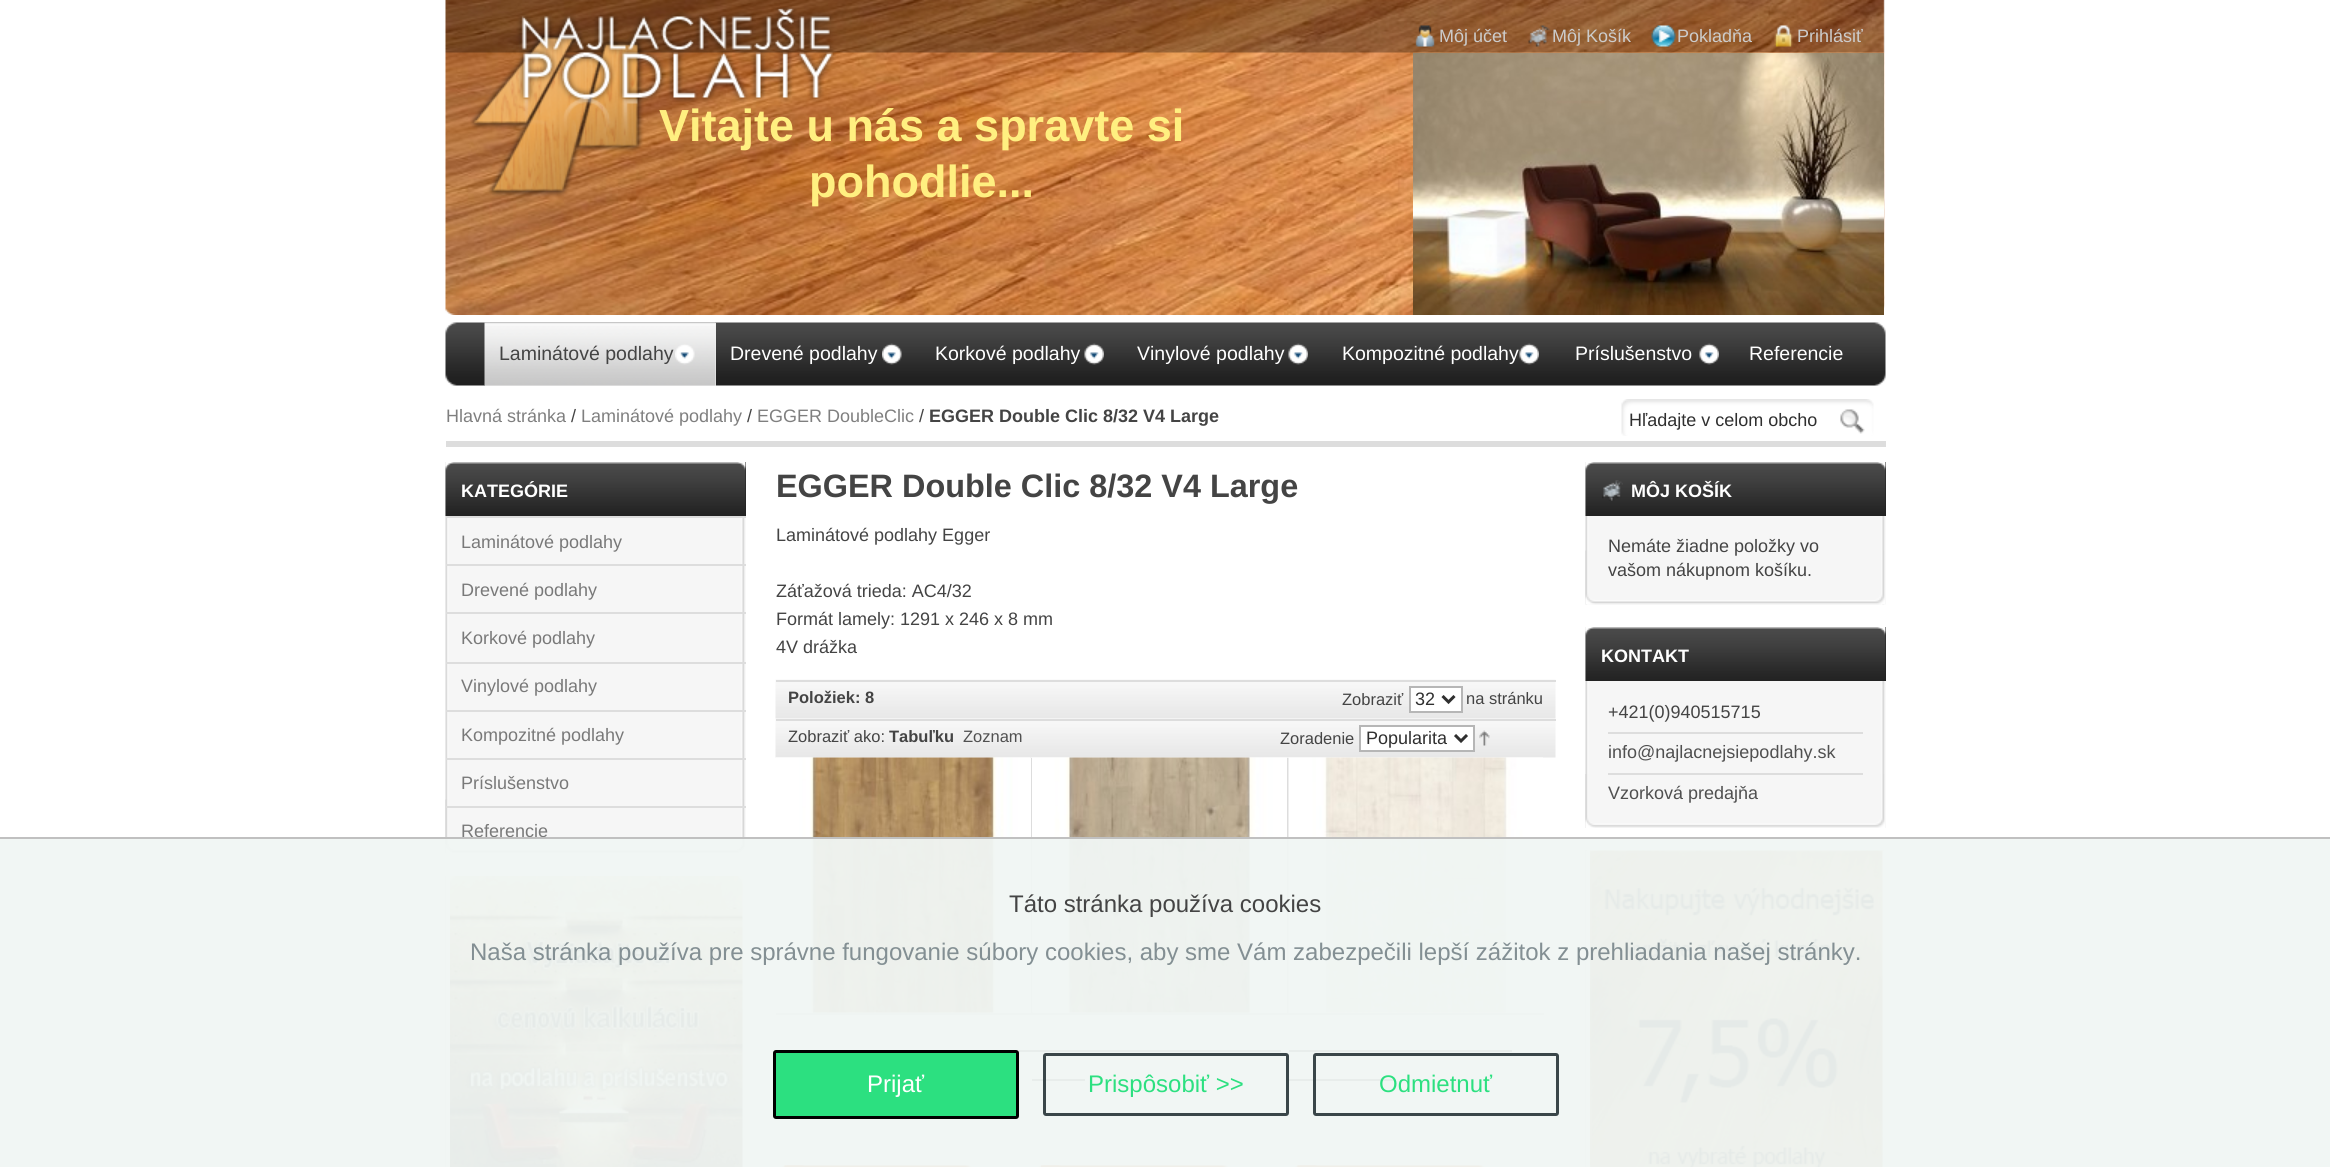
#include <cairo.h>
#include <math.h>
#include <stddef.h>

static cairo_t *ctx;

static void use_color(int r, int g, int b) {
    cairo_set_source_rgb(ctx, r / 255.0, g / 255.0, b / 255.0);
}

static void round_rect(double x, double y, double w, double h, double r) {
    cairo_new_sub_path(ctx);
    cairo_arc(ctx, x + w - r, y + h - r, r, 0, M_PI / 2);
    cairo_arc(ctx, x + r, y + h - r, r, M_PI / 2, M_PI);
    cairo_arc(ctx, x + r, y + r, r, M_PI, 1.5 * M_PI);
    cairo_arc(ctx, x + w - r, y + r, r, 1.5 * M_PI, 2 * M_PI);
    cairo_close_path(ctx);
}

static void picture(const char *path, double x, double y, double w, double h) {
    cairo_surface_t *image = cairo_image_surface_create_from_png(path);
    cairo_save(ctx);
    cairo_set_source_surface(ctx, image, x, y);
    cairo_rectangle(ctx, x, y, w, h);
    cairo_fill(ctx);
    cairo_restore(ctx);
    cairo_surface_destroy(image);
}

int main(void) {
    cairo_surface_t *surface = cairo_image_surface_create(CAIRO_FORMAT_RGB24, 2330, 1167);
    ctx = cairo_create(surface);
    cairo_font_options_t *options = cairo_font_options_create();
    cairo_font_options_set_hint_metrics(options, CAIRO_HINT_METRICS_OFF);
    cairo_font_options_set_hint_style(options, CAIRO_HINT_STYLE_NONE);
    cairo_set_font_options(ctx, options);
    cairo_set_miter_limit(ctx, 4);
    use_color(255, 255, 255);
    cairo_paint(ctx);
    picture("img1.png", 445, 0, 1440, 315);
    picture("img2.png", 470, 7, 366, 190);
    picture("img3.png", 1415, 25, 20, 22);
    cairo_select_font_face(ctx, "Liberation Sans", CAIRO_FONT_SLANT_NORMAL, CAIRO_FONT_WEIGHT_NORMAL);
    cairo_set_font_size(ctx, 18);
    use_color(204, 204, 204);
    cairo_move_to(ctx, 1439, 42);
    cairo_show_text(ctx, "Môj účet");
    picture("img4.png", 1527, 25, 23, 22);
    cairo_move_to(ctx, 1552, 42);
    cairo_show_text(ctx, "Môj Košík");
    picture("img5.png", 1651, 25, 25, 22);
    cairo_move_to(ctx, 1677, 42);
    cairo_show_text(ctx, "Pokladňa");
    picture("img6.png", 1774, 25, 19, 22);
    cairo_move_to(ctx, 1797, 42);
    cairo_show_text(ctx, "Prihlásiť");
    picture("img7.png", 445, 322, 1441, 64);
    use_color(239, 239, 239);
    cairo_rectangle(ctx, 485, 323, 231, 63);
    cairo_fill(ctx);
    picture("img8.png", 484, 322, 232, 64);
    picture("img9.png", 675, 344, 20, 21);
    cairo_set_font_size(ctx, 19.5);
    use_color(68, 68, 68);
    cairo_move_to(ctx, 499, 360);
    cairo_show_text(ctx, "Laminátové podlahy");
    picture("img10.png", 882, 343, 20, 22);
    use_color(255, 255, 255);
    cairo_move_to(ctx, 730, 360);
    cairo_show_text(ctx, "Drevené podlahy");
    picture("img11.png", 1084, 343, 20, 22);
    cairo_move_to(ctx, 935, 360);
    cairo_show_text(ctx, "Korkové podlahy");
    picture("img12.png", 1288, 343, 20, 22);
    cairo_move_to(ctx, 1137, 360);
    cairo_show_text(ctx, "Vinylové podlahy");
    picture("img13.png", 1519, 343, 20, 22);
    cairo_move_to(ctx, 1342, 360);
    cairo_show_text(ctx, "Kompozitné podlahy");
    picture("img11.png", 1699, 343, 20, 22);
    cairo_move_to(ctx, 1575, 360);
    cairo_show_text(ctx, "Príslušenstvo");
    cairo_move_to(ctx, 1749, 360);
    cairo_show_text(ctx, "Referencie");
    picture("img14.png", 1621, 399, 253, 37);
    cairo_set_font_size(ctx, 18);
    use_color(47, 47, 47);
    cairo_move_to(ctx, 1629, 426);
    cairo_show_text(ctx, "Hľadajte v celom obcho");
    picture("img15.png", 1840, 409, 25, 25);
    use_color(221, 221, 221);
    cairo_rectangle(ctx, 446, 441, 1440, 6);
    cairo_fill(ctx);
    use_color(127, 127, 127);
    cairo_move_to(ctx, 446, 422);
    cairo_show_text(ctx, "Hlavná stránka");
    use_color(68, 68, 68);
    cairo_move_to(ctx, 571, 422);
    cairo_show_text(ctx, "/");
    use_color(127, 127, 127);
    cairo_move_to(ctx, 581, 422);
    cairo_show_text(ctx, "Laminátové podlahy");
    use_color(68, 68, 68);
    cairo_move_to(ctx, 747, 422);
    cairo_show_text(ctx, "/");
    use_color(127, 127, 127);
    cairo_move_to(ctx, 757, 422);
    cairo_show_text(ctx, "EGGER DoubleClic");
    use_color(68, 68, 68);
    cairo_move_to(ctx, 919, 422);
    cairo_show_text(ctx, "/");
    cairo_select_font_face(ctx, "Liberation Sans", CAIRO_FONT_SLANT_NORMAL, CAIRO_FONT_WEIGHT_BOLD);
    cairo_move_to(ctx, 929, 422);
    cairo_show_text(ctx, "EGGER Double Clic 8/32 V4 Large");
    cairo_set_font_size(ctx, 45);
    use_color(255, 239, 128);
    cairo_move_to(ctx, 659, 141);
    cairo_show_text(ctx, "Vitajte u nás a spravte si");
    cairo_move_to(ctx, 809, 197);
    cairo_show_text(ctx, "pohodlie...");
    picture("img16.png", 1413, 52, 471, 263);
    picture("img17.png", 445, 462, 301, 392);
    use_color(31, 31, 31);
    cairo_rectangle(ctx, 745, 462, 1, 54);
    cairo_fill(ctx);
    picture("img18.png", 445, 462, 301, 54);
    cairo_set_font_size(ctx, 18);
    use_color(255, 255, 255);
    cairo_move_to(ctx, 461, 497);
    cairo_show_text(ctx, "KATEGÓRIE");
    picture("img19.png", 445, 799, 300, 55);
    use_color(221, 221, 221);
    cairo_rectangle(ctx, 446, 516, 300, 2);
    cairo_fill(ctx);
    cairo_select_font_face(ctx, "Liberation Sans", CAIRO_FONT_SLANT_NORMAL, CAIRO_FONT_WEIGHT_NORMAL);
    use_color(121, 121, 121);
    cairo_move_to(ctx, 461, 548);
    cairo_show_text(ctx, "Laminátové podlahy");
    use_color(221, 221, 221);
    cairo_rectangle(ctx, 446, 564, 300, 2);
    cairo_fill(ctx);
    use_color(121, 121, 121);
    cairo_move_to(ctx, 461, 596);
    cairo_show_text(ctx, "Drevené podlahy");
    use_color(221, 221, 221);
    cairo_rectangle(ctx, 446, 612, 300, 2);
    cairo_fill(ctx);
    use_color(121, 121, 121);
    cairo_move_to(ctx, 461, 644);
    cairo_show_text(ctx, "Korkové podlahy");
    use_color(221, 221, 221);
    cairo_rectangle(ctx, 446, 662, 300, 2);
    cairo_fill(ctx);
    use_color(121, 121, 121);
    cairo_move_to(ctx, 461, 692);
    cairo_show_text(ctx, "Vinylové podlahy");
    use_color(221, 221, 221);
    cairo_rectangle(ctx, 446, 710, 300, 2);
    cairo_fill(ctx);
    use_color(121, 121, 121);
    cairo_move_to(ctx, 461, 741);
    cairo_show_text(ctx, "Kompozitné podlahy");
    use_color(221, 221, 221);
    cairo_rectangle(ctx, 446, 758, 300, 2);
    cairo_fill(ctx);
    use_color(121, 121, 121);
    cairo_move_to(ctx, 461, 789);
    cairo_show_text(ctx, "Príslušenstvo");
    use_color(221, 221, 221);
    cairo_rectangle(ctx, 446, 806, 300, 2);
    cairo_fill(ctx);
    use_color(121, 121, 121);
    cairo_move_to(ctx, 461, 837);
    cairo_show_text(ctx, "Referencie");
    picture("img20.png", 445, 876, 1, 291);
    picture("img21.png", 450, 876, 293, 291);
    cairo_select_font_face(ctx, "Liberation Sans", CAIRO_FONT_SLANT_NORMAL, CAIRO_FONT_WEIGHT_BOLD);
    cairo_set_font_size(ctx, 32.4);
    use_color(68, 68, 68);
    cairo_move_to(ctx, 776, 497);
    cairo_show_text(ctx, "EGGER Double Clic 8/32 V4 Large");
    cairo_select_font_face(ctx, "Liberation Sans", CAIRO_FONT_SLANT_NORMAL, CAIRO_FONT_WEIGHT_NORMAL);
    cairo_set_font_size(ctx, 18);
    cairo_move_to(ctx, 776, 541);
    cairo_show_text(ctx, "Laminátové podlahy Egger");
    cairo_move_to(ctx, 776, 597);
    cairo_show_text(ctx, "Záťažová trieda: AC4/32");
    cairo_move_to(ctx, 776, 625);
    cairo_show_text(ctx, "Formát lamely: 1291 x 246 x 8 mm");
    cairo_move_to(ctx, 776, 653);
    cairo_show_text(ctx, "4V drážka");
    picture("img22.png", 775, 679, 781, 40);
    use_color(221, 221, 221);
    cairo_rectangle(ctx, 776, 680, 780, 2);
    cairo_fill(ctx);
    cairo_select_font_face(ctx, "Liberation Sans", CAIRO_FONT_SLANT_NORMAL, CAIRO_FONT_WEIGHT_BOLD);
    cairo_set_font_size(ctx, 16.5);
    use_color(68, 68, 68);
    cairo_move_to(ctx, 788, 703);
    cairo_show_text(ctx, "Položiek: 8");
    cairo_select_font_face(ctx, "Liberation Sans", CAIRO_FONT_SLANT_NORMAL, CAIRO_FONT_WEIGHT_NORMAL);
    cairo_move_to(ctx, 1342, 705);
    cairo_show_text(ctx, "Zobraziť");
    use_color(255, 255, 255);
    cairo_rectangle(ctx, 1410, 687, 52, 25);
    cairo_fill_preserve(ctx);
    use_color(182, 182, 182);
    cairo_stroke(ctx);
    cairo_new_path(ctx);
    cairo_move_to(ctx, 1442.5, 696);
    cairo_line_to(ctx, 1448.5, 702);
    cairo_line_to(ctx, 1454.5, 696);
    use_color(47, 47, 47);
    cairo_set_line_width(ctx, 3);
    cairo_stroke(ctx);
    cairo_set_font_size(ctx, 18);
    cairo_move_to(ctx, 1415, 705);
    cairo_show_text(ctx, "32");
    cairo_set_font_size(ctx, 16.5);
    use_color(68, 68, 68);
    cairo_move_to(ctx, 1466, 704);
    cairo_show_text(ctx, "na stránku");
    picture("img23.png", 775, 719, 781, 39);
    use_color(221, 221, 221);
    cairo_rectangle(ctx, 776, 719, 780, 2);
    cairo_fill(ctx);
    use_color(68, 68, 68);
    cairo_move_to(ctx, 788, 742);
    cairo_show_text(ctx, "Zobraziť ako:");
    cairo_select_font_face(ctx, "Liberation Sans", CAIRO_FONT_SLANT_NORMAL, CAIRO_FONT_WEIGHT_BOLD);
    cairo_move_to(ctx, 889, 742);
    cairo_show_text(ctx, "Tabuľku");
    cairo_select_font_face(ctx, "Liberation Sans", CAIRO_FONT_SLANT_NORMAL, CAIRO_FONT_WEIGHT_NORMAL);
    use_color(80, 80, 80);
    cairo_move_to(ctx, 963, 742);
    cairo_show_text(ctx, "Zoznam");
    use_color(68, 68, 68);
    cairo_move_to(ctx, 1280, 744);
    cairo_show_text(ctx, "Zoradenie");
    use_color(255, 255, 255);
    cairo_rectangle(ctx, 1360, 726, 114, 25);
    cairo_fill_preserve(ctx);
    use_color(182, 182, 182);
    cairo_set_line_width(ctx, 2);
    cairo_stroke(ctx);
    cairo_new_path(ctx);
    cairo_move_to(ctx, 1455, 735);
    cairo_line_to(ctx, 1461, 741);
    cairo_line_to(ctx, 1467, 735);
    use_color(47, 47, 47);
    cairo_set_line_width(ctx, 3);
    cairo_stroke(ctx);
    cairo_set_font_size(ctx, 18);
    cairo_move_to(ctx, 1366, 744);
    cairo_show_text(ctx, "Popularita");
    picture("img24.png", 1479, 730, 11, 16);
    use_color(221, 221, 221);
    cairo_rectangle(ctx, 1031, 758, 2, 256);
    cairo_fill(ctx);
    cairo_rectangle(ctx, 776, 1013, 256, 2);
    cairo_fill(ctx);
    picture("img25.png", 776, 757, 254, 256);
    use_color(68, 68, 68);
    cairo_rectangle(ctx, 1016, 1050, 265, 2);
    cairo_fill(ctx);
    picture("img26.png", 781, 1165, 24, 2);
    picture("img27.png", 784, 1165, 188, 2);
    use_color(221, 221, 221);
    cairo_rectangle(ctx, 1287, 758, 2, 256);
    cairo_fill(ctx);
    cairo_rectangle(ctx, 1032, 1013, 512, 2);
    cairo_fill(ctx);
    picture("img28.png", 1032, 757, 255, 256);
    use_color(68, 68, 68);
    cairo_rectangle(ctx, 1032, 1079, 53, 2);
    cairo_fill(ctx);
    picture("img29.png", 1038, 1165, 23, 2);
    picture("img30.png", 1041, 1165, 188, 2);
    picture("img31.png", 1288, 757, 255, 256);
    cairo_rectangle(ctx, 1289, 1050, 223, 2);
    cairo_fill(ctx);
    cairo_rectangle(ctx, 1289, 1079, 105, 2);
    cairo_fill(ctx);
    picture("img26.png", 1294, 1165, 24, 2);
    picture("img27.png", 1297, 1165, 188, 2);
    picture("img32.png", 1585, 462, 301, 143);
    use_color(31, 31, 31);
    cairo_rectangle(ctx, 1885, 462, 1, 54);
    cairo_fill(ctx);
    picture("img18.png", 1585, 462, 301, 54);
    picture("img33.png", 1602, 480, 21, 21);
    cairo_select_font_face(ctx, "Liberation Sans", CAIRO_FONT_SLANT_NORMAL, CAIRO_FONT_WEIGHT_BOLD);
    use_color(255, 255, 255);
    cairo_move_to(ctx, 1631, 497);
    cairo_show_text(ctx, "MÔJ KOŠÍK");
    picture("img19.png", 1585, 550, 300, 55);
    cairo_select_font_face(ctx, "Liberation Sans", CAIRO_FONT_SLANT_NORMAL, CAIRO_FONT_WEIGHT_NORMAL);
    use_color(68, 68, 68);
    cairo_move_to(ctx, 1608, 552);
    cairo_show_text(ctx, "Nemáte žiadne položky vo");
    cairo_move_to(ctx, 1608, 576);
    cairo_show_text(ctx, "vašom nákupnom košíku.");
    picture("img34.png", 1585, 627, 301, 201);
    use_color(31, 31, 31);
    cairo_rectangle(ctx, 1885, 627, 1, 54);
    cairo_fill(ctx);
    picture("img18.png", 1585, 627, 301, 54);
    cairo_select_font_face(ctx, "Liberation Sans", CAIRO_FONT_SLANT_NORMAL, CAIRO_FONT_WEIGHT_BOLD);
    use_color(255, 255, 255);
    cairo_move_to(ctx, 1601, 662);
    cairo_show_text(ctx, "KONTAKT");
    picture("img35.png", 1585, 774, 300, 54);
    use_color(221, 221, 221);
    cairo_rectangle(ctx, 1608, 732, 255, 2);
    cairo_fill(ctx);
    cairo_select_font_face(ctx, "Liberation Sans", CAIRO_FONT_SLANT_NORMAL, CAIRO_FONT_WEIGHT_NORMAL);
    use_color(68, 68, 68);
    cairo_move_to(ctx, 1608, 718);
    cairo_show_text(ctx, "+421(0)940515715");
    use_color(221, 221, 221);
    cairo_rectangle(ctx, 1608, 773, 255, 2);
    cairo_fill(ctx);
    use_color(80, 80, 80);
    cairo_move_to(ctx, 1608, 758);
    cairo_show_text(ctx, "info@najlacnejsiepodlahy.sk");
    cairo_move_to(ctx, 1608, 799);
    cairo_show_text(ctx, "Vzorková predajňa");
    picture("img36.png", 1585, 850, 301, 317);
    use_color(255, 255, 255);
    cairo_rectangle(ctx, 1586, 851, 300, 316);
    cairo_fill(ctx);
    picture("img37.png", 1590, 850, 293, 317);
    cairo_set_source_rgba(ctx, 0.945, 0.965, 0.957, 0.95);
    cairo_rectangle(ctx, 0, 839, 2330, 328);
    cairo_fill(ctx);
    use_color(192, 192, 192);
    cairo_rectangle(ctx, 0, 837, 2330, 2);
    cairo_fill(ctx);
    cairo_set_font_size(ctx, 24);
    use_color(68, 68, 68);
    cairo_move_to(ctx, 1009, 912);
    cairo_show_text(ctx, "Táto stránka používa cookies");
    use_color(131, 143, 147);
    cairo_move_to(ctx, 470, 960);
    cairo_show_text(ctx, "Naša stránka používa pre správne fungovanie súbory cookies, aby sme Vám zabezpečili lepší zážitok z prehliadania našej stránky.");
    use_color(44, 224, 128);
    round_rect(774.5, 1051.5, 243, 66, 1.5);
    cairo_fill_preserve(ctx);
    use_color(0, 0, 0);
    cairo_stroke(ctx);
    use_color(255, 255, 255);
    cairo_move_to(ctx, 867, 1092);
    cairo_show_text(ctx, "Prijať");
    round_rect(1044.5, 1054.5, 243, 60, 1.5);
    use_color(58, 70, 73);
    cairo_stroke(ctx);
    use_color(44, 224, 128);
    cairo_move_to(ctx, 1088, 1092);
    cairo_show_text(ctx, "Prispôsobiť >>");
    round_rect(1314.5, 1054.5, 243, 60, 1.5);
    use_color(58, 70, 73);
    cairo_stroke(ctx);
    use_color(44, 224, 128);
    cairo_move_to(ctx, 1379, 1092);
    cairo_show_text(ctx, "Odmietnuť");
    cairo_surface_write_to_png(surface, "result.png");
    cairo_font_options_destroy(options);
    cairo_destroy(ctx);
    cairo_surface_destroy(surface);
    return 0;
}
